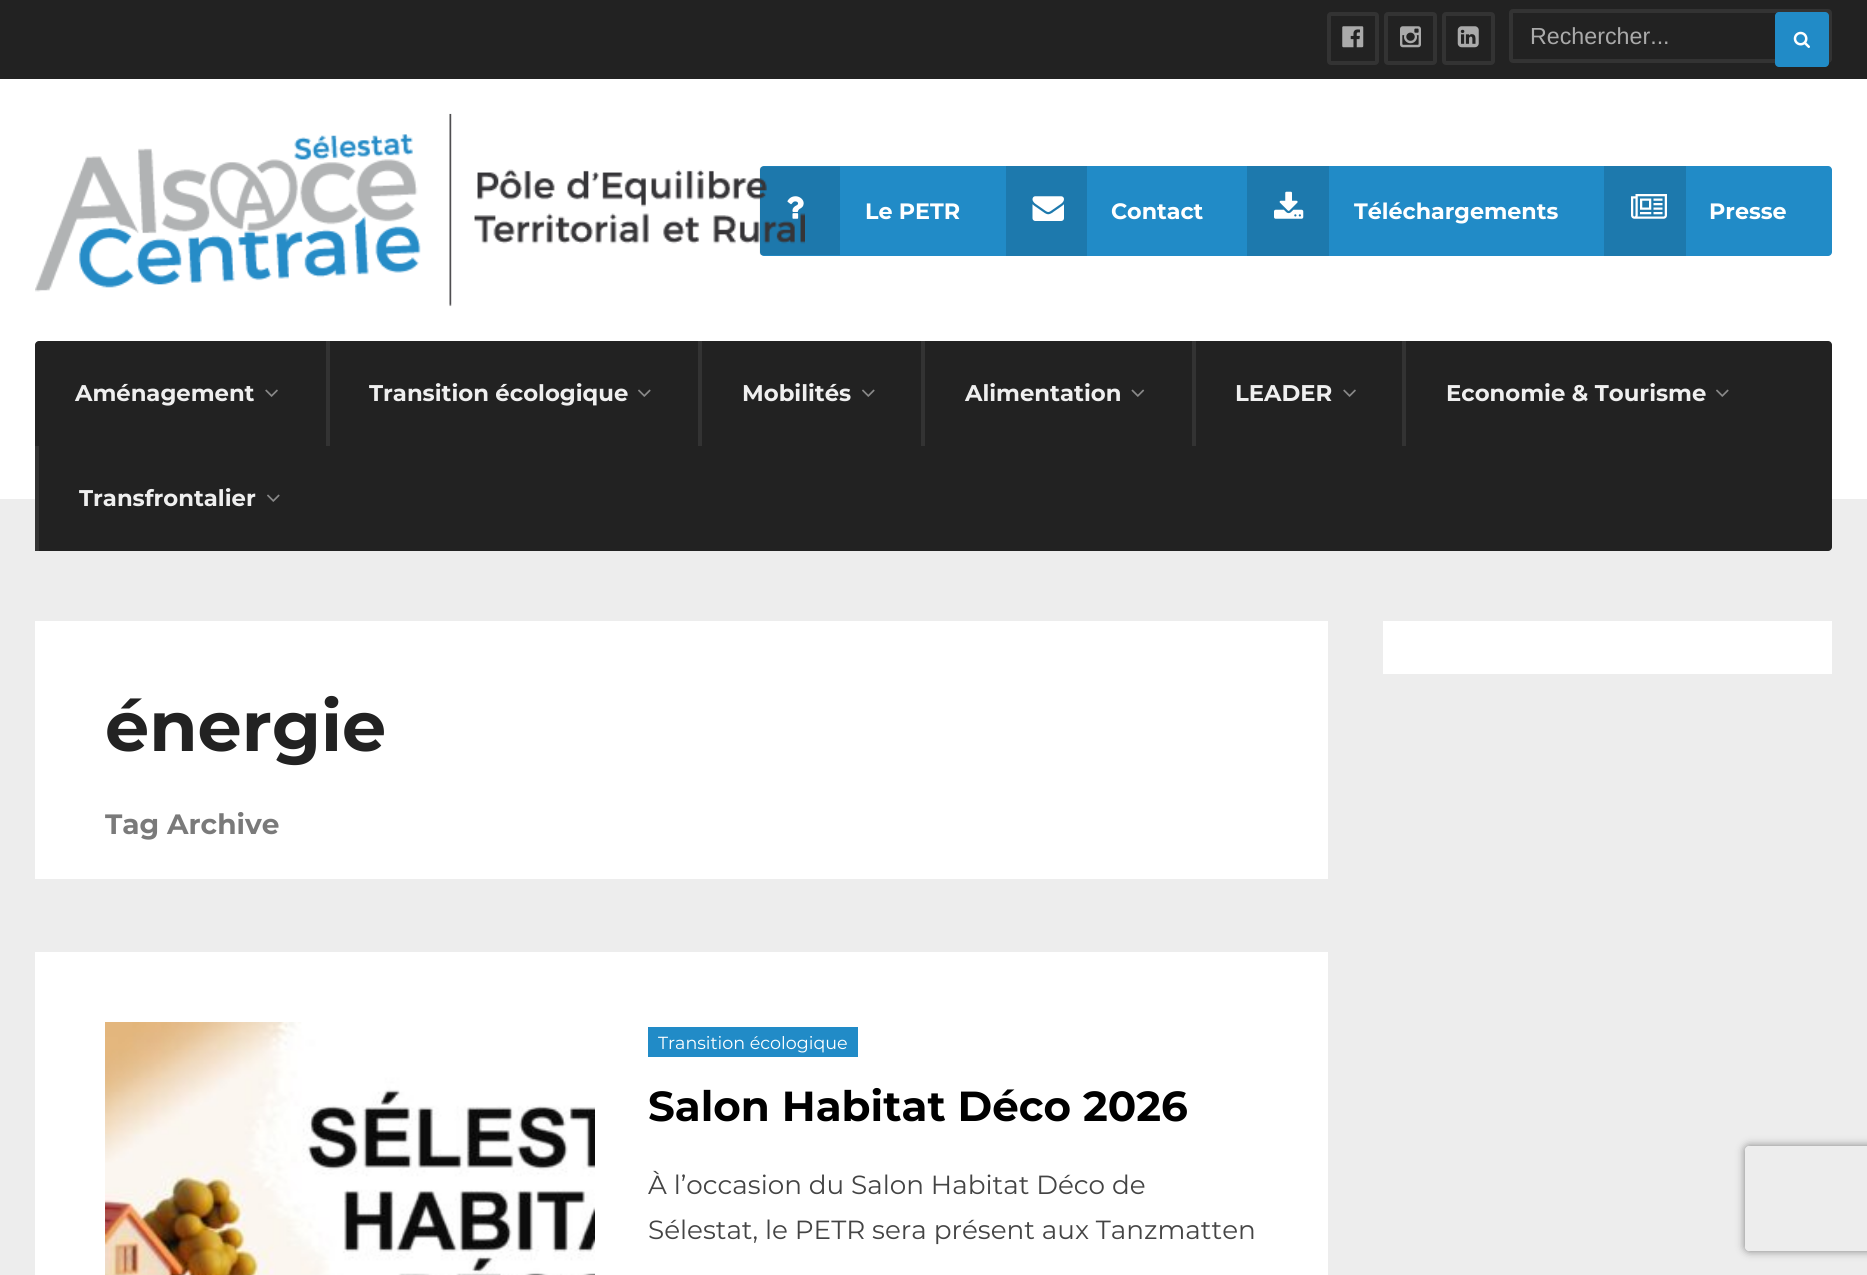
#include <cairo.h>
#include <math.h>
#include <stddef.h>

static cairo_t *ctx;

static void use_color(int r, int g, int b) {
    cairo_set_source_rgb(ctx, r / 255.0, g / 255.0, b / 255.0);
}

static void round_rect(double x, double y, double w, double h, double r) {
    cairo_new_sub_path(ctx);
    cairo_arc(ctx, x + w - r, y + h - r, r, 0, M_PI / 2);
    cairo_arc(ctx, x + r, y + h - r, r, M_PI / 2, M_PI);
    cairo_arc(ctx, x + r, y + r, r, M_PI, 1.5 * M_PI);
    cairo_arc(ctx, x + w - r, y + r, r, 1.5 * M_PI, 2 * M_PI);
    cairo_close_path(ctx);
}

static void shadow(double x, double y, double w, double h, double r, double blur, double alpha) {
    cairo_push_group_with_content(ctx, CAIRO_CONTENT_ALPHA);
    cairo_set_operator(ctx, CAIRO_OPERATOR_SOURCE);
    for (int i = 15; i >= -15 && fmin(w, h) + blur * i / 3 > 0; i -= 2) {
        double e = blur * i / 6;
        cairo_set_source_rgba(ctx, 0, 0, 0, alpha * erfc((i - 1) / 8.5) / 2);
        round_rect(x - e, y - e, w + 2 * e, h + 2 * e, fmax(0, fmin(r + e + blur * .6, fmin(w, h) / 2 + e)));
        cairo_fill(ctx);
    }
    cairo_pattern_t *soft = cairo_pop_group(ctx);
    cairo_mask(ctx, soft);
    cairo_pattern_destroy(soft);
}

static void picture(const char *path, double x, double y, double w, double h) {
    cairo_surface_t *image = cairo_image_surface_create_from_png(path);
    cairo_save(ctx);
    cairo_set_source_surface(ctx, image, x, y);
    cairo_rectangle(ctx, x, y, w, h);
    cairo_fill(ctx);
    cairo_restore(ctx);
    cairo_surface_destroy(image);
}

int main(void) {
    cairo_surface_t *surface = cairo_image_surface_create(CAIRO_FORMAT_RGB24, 1867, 1275);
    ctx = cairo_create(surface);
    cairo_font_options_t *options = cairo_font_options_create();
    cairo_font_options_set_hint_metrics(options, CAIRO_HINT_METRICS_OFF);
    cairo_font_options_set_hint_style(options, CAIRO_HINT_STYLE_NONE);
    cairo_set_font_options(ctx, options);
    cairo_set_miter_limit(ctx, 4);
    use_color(237, 237, 237);
    cairo_paint(ctx);
    use_color(34, 34, 34);
    cairo_rectangle(ctx, 0, 0, 1867, 79);
    cairo_fill(ctx);
    round_rect(1329, 14, 48, 49, 2);
    use_color(51, 51, 51);
    cairo_set_line_width(ctx, 4);
    cairo_stroke(ctx);
    picture("img1.png", 1342, 26, 22, 22);
    round_rect(1386, 14, 49, 49, 2);
    cairo_stroke(ctx);
    picture("img2.png", 1400, 26, 21, 22);
    round_rect(1444, 14, 49, 49, 2);
    cairo_stroke(ctx);
    picture("img3.png", 1457, 26, 22, 22);
    round_rect(1511, 11, 319, 50, 2);
    cairo_stroke(ctx);
    cairo_select_font_face(ctx, "Liberation Sans", CAIRO_FONT_SLANT_NORMAL, CAIRO_FONT_WEIGHT_NORMAL);
    cairo_set_font_size(ctx, 23.25);
    use_color(170, 170, 170);
    cairo_move_to(ctx, 1530, 44);
    cairo_show_text(ctx, "Rechercher...");
    use_color(33, 139, 199);
    round_rect(1775, 12, 54, 55, 4);
    cairo_fill(ctx);
    picture("img4.png", 1793, 31, 17, 17);
    use_color(255, 255, 255);
    cairo_rectangle(ctx, 0, 79, 1867, 420);
    cairo_fill(ctx);
    use_color(33, 139, 199);
    round_rect(760, 166, 1072, 90, 4);
    cairo_fill(ctx);
    picture("img6.png", 759, 166, 81, 90);
    picture("img7.png", 787, 196, 17, 23);
    picture("img5.png", 35, 113, 770, 194);
    cairo_select_font_face(ctx, "Montserrat", CAIRO_FONT_SLANT_NORMAL, CAIRO_FONT_WEIGHT_BOLD);
    cairo_set_font_size(ctx, 22.25);
    use_color(255, 255, 255);
    cairo_move_to(ctx, 865, 219);
    cairo_show_text(ctx, "Le PETR");
    use_color(29, 121, 173);
    cairo_rectangle(ctx, 1006, 166, 81, 90);
    cairo_fill(ctx);
    picture("img8.png", 1032, 196, 32, 25);
    use_color(255, 255, 255);
    cairo_move_to(ctx, 1111, 219);
    cairo_show_text(ctx, "Contact");
    use_color(29, 121, 173);
    cairo_rectangle(ctx, 1247, 166, 82, 90);
    cairo_fill(ctx);
    picture("img9.png", 1274, 191, 30, 28);
    use_color(255, 255, 255);
    cairo_move_to(ctx, 1354, 219);
    cairo_show_text(ctx, "Téléchargements");
    use_color(29, 121, 173);
    cairo_rectangle(ctx, 1604, 166, 82, 90);
    cairo_fill(ctx);
    picture("img10.png", 1631, 194, 36, 25);
    use_color(255, 255, 255);
    cairo_move_to(ctx, 1709, 219);
    cairo_show_text(ctx, "Presse");
    use_color(34, 34, 34);
    round_rect(35, 341, 1797, 210, 4);
    cairo_fill(ctx);
    cairo_set_font_size(ctx, 22.75);
    use_color(239, 239, 239);
    cairo_move_to(ctx, 75, 401);
    cairo_show_text(ctx, "Aménagement");
    picture("img11.png", 265, 389, 13, 8);
    use_color(51, 51, 51);
    cairo_rectangle(ctx, 326, 341, 4, 105);
    cairo_fill(ctx);
    use_color(239, 239, 239);
    cairo_move_to(ctx, 369, 401);
    cairo_show_text(ctx, "Transition écologique");
    picture("img12.png", 638, 389, 13, 8);
    use_color(51, 51, 51);
    cairo_rectangle(ctx, 698, 341, 4, 105);
    cairo_fill(ctx);
    use_color(239, 239, 239);
    cairo_move_to(ctx, 742, 401);
    cairo_show_text(ctx, "Mobilités");
    picture("img12.png", 862, 389, 13, 8);
    use_color(51, 51, 51);
    cairo_rectangle(ctx, 921, 341, 4, 105);
    cairo_fill(ctx);
    use_color(239, 239, 239);
    cairo_move_to(ctx, 965, 401);
    cairo_show_text(ctx, "Alimentation");
    picture("img13.png", 1131, 389, 14, 8);
    use_color(51, 51, 51);
    cairo_rectangle(ctx, 1192, 341, 4, 105);
    cairo_fill(ctx);
    use_color(239, 239, 239);
    cairo_move_to(ctx, 1235, 401);
    cairo_show_text(ctx, "LEADER");
    picture("img11.png", 1343, 389, 13, 8);
    use_color(51, 51, 51);
    cairo_rectangle(ctx, 1402, 341, 4, 105);
    cairo_fill(ctx);
    use_color(239, 239, 239);
    cairo_move_to(ctx, 1446, 401);
    cairo_show_text(ctx, "Economie & Tourisme");
    picture("img12.png", 1716, 389, 13, 8);
    use_color(51, 51, 51);
    cairo_rectangle(ctx, 35, 446, 4, 105);
    cairo_fill(ctx);
    use_color(239, 239, 239);
    cairo_move_to(ctx, 79, 506);
    cairo_show_text(ctx, "Transfrontalier");
    picture("img12.png", 267, 494, 13, 8);
    use_color(255, 255, 255);
    cairo_rectangle(ctx, 1383, 621, 449, 53);
    cairo_fill(ctx);
    cairo_rectangle(ctx, 35, 621, 1293, 258);
    cairo_fill(ctx);
    cairo_set_font_size(ctx, 70);
    use_color(34, 34, 34);
    cairo_move_to(ctx, 105, 751);
    cairo_show_text(ctx, "énergie");
    cairo_set_font_size(ctx, 28);
    use_color(122, 122, 122);
    cairo_move_to(ctx, 105, 834);
    cairo_show_text(ctx, "Tag Archive");
    use_color(255, 255, 255);
    cairo_rectangle(ctx, 35, 952, 1293, 323);
    cairo_fill(ctx);
    picture("img14.png", 105, 1022, 490, 253);
    use_color(33, 139, 199);
    cairo_rectangle(ctx, 648, 1027, 210, 30);
    cairo_fill(ctx);
    cairo_select_font_face(ctx, "Montserrat", CAIRO_FONT_SLANT_NORMAL, CAIRO_FONT_WEIGHT_NORMAL);
    cairo_set_font_size(ctx, 17.5);
    use_color(255, 255, 255);
    cairo_move_to(ctx, 658, 1049);
    cairo_show_text(ctx, "Transition écologique");
    cairo_select_font_face(ctx, "Montserrat", CAIRO_FONT_SLANT_NORMAL, CAIRO_FONT_WEIGHT_BOLD);
    cairo_set_font_size(ctx, 42);
    use_color(0, 0, 0);
    cairo_move_to(ctx, 648, 1121);
    cairo_show_text(ctx, "Salon Habitat Déco 2026");
    cairo_select_font_face(ctx, "Montserrat", CAIRO_FONT_SLANT_NORMAL, CAIRO_FONT_WEIGHT_NORMAL);
    cairo_set_font_size(ctx, 26.25);
    use_color(68, 68, 68);
    cairo_move_to(ctx, 648, 1194);
    cairo_show_text(ctx, "À l’occasion du Salon Habitat Déco de");
    cairo_move_to(ctx, 648, 1239);
    cairo_show_text(ctx, "Sélestat, le PETR sera présent aux Tanzmatten");
    cairo_save(ctx);
    cairo_set_fill_rule(ctx, CAIRO_FILL_RULE_EVEN_ODD);
    cairo_new_path(ctx);
    cairo_move_to(ctx, 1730, 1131);
    cairo_line_to(ctx, 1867, 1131);
    cairo_line_to(ctx, 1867, 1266);
    cairo_line_to(ctx, 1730, 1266);
    cairo_close_path(ctx);
    cairo_move_to(ctx, 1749, 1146);
    cairo_line_to(ctx, 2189, 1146);
    cairo_curve_to(ctx, 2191, 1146, 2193, 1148, 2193, 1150);
    cairo_line_to(ctx, 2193, 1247);
    cairo_curve_to(ctx, 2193, 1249, 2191, 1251, 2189, 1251);
    cairo_line_to(ctx, 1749, 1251);
    cairo_curve_to(ctx, 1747, 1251, 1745, 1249, 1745, 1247);
    cairo_line_to(ctx, 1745, 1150);
    cairo_curve_to(ctx, 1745, 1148, 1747, 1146, 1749, 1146);
    cairo_close_path(ctx);
    cairo_clip(ctx);
    use_color(128, 128, 128);
    shadow(1745, 1146, 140, 105, 4, 4.5, 1);
    cairo_restore(ctx);
    cairo_surface_write_to_png(surface, "result.png");
    cairo_font_options_destroy(options);
    cairo_destroy(ctx);
    cairo_surface_destroy(surface);
    return 0;
}
